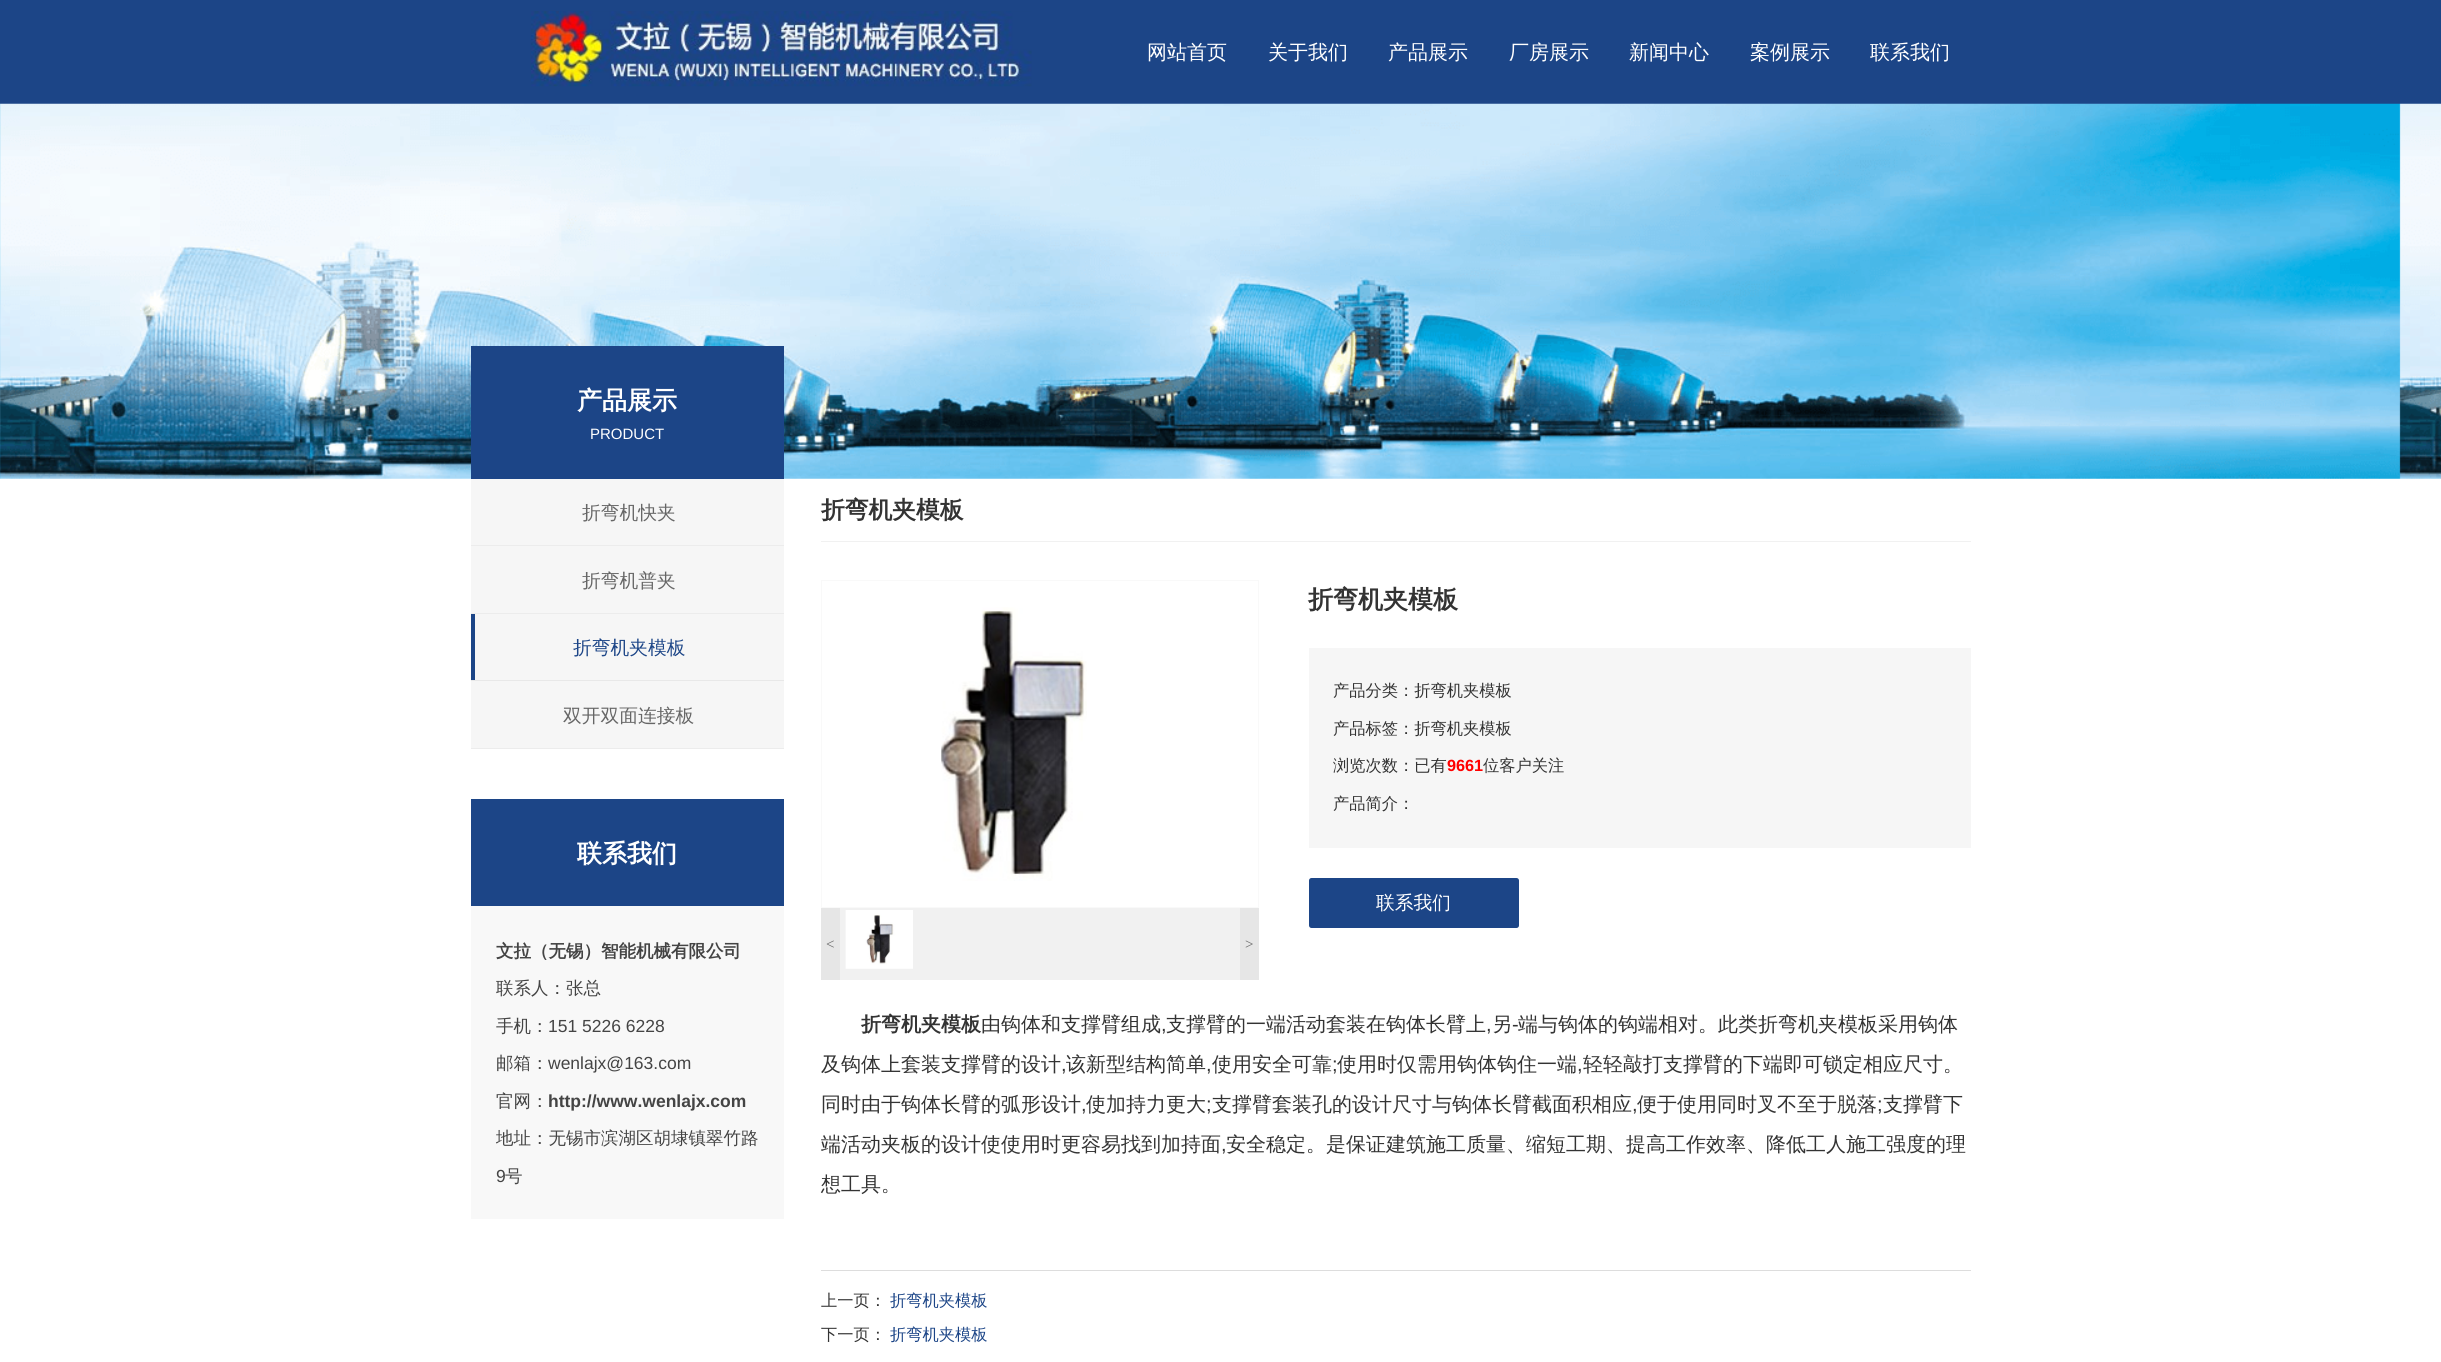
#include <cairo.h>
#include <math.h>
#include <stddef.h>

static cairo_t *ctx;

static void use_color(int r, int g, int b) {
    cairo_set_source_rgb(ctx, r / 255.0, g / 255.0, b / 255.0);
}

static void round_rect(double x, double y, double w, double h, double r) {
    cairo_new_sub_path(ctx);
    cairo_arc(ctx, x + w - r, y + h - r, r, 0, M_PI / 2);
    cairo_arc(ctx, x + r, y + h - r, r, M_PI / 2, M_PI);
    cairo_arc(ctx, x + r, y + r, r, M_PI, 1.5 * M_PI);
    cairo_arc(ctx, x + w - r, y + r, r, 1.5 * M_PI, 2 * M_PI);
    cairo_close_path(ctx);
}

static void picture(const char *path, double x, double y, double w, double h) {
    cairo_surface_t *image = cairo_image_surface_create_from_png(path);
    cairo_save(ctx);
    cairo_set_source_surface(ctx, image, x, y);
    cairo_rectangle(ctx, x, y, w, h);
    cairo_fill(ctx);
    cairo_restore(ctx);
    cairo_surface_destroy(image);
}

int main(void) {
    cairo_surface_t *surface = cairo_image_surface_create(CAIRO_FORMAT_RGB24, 2441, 1362);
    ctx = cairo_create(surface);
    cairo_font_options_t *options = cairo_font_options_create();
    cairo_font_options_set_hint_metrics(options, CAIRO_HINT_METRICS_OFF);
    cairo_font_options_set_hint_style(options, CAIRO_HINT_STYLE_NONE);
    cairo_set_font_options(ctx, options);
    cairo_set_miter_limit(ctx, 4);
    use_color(255, 255, 255);
    cairo_paint(ctx);
    use_color(28, 69, 135);
    cairo_rectangle(ctx, 0, 0, 2441, 104);
    cairo_fill(ctx);
    picture("img1.png", 531, 11, 501, 76);
    cairo_select_font_face(ctx, "WenQuanYi Zen Hei Medium", CAIRO_FONT_SLANT_NORMAL, CAIRO_FONT_WEIGHT_NORMAL);
    cairo_set_font_size(ctx, 20);
    use_color(255, 255, 255);
    cairo_move_to(ctx, 1147, 59);
    cairo_show_text(ctx, "网站首页");
    cairo_move_to(ctx, 1268, 59);
    cairo_show_text(ctx, "关于我们");
    cairo_move_to(ctx, 1388, 59);
    cairo_show_text(ctx, "产品展示");
    cairo_move_to(ctx, 1509, 59);
    cairo_show_text(ctx, "厂房展示");
    cairo_move_to(ctx, 1629, 59);
    cairo_show_text(ctx, "新闻中心");
    cairo_move_to(ctx, 1750, 59);
    cairo_show_text(ctx, "案例展示");
    cairo_move_to(ctx, 1870, 59);
    cairo_show_text(ctx, "联系我们");
    picture("img2.png", 0, 103, 2441, 376);
    use_color(28, 69, 135);
    cairo_rectangle(ctx, 471, 346, 313, 133);
    cairo_fill(ctx);
    cairo_select_font_face(ctx, "WenQuanYi Zen Hei", CAIRO_FONT_SLANT_NORMAL, CAIRO_FONT_WEIGHT_BOLD);
    cairo_set_font_size(ctx, 25);
    use_color(255, 255, 255);
    cairo_move_to(ctx, 577, 409);
    cairo_show_text(ctx, "产品展示");
    cairo_select_font_face(ctx, "Liberation Sans", CAIRO_FONT_SLANT_NORMAL, CAIRO_FONT_WEIGHT_NORMAL);
    cairo_set_font_size(ctx, 15);
    cairo_move_to(ctx, 590, 439);
    cairo_show_text(ctx, "PRODUCT");
    use_color(246, 246, 246);
    cairo_rectangle(ctx, 471, 479, 313, 66);
    cairo_fill(ctx);
    cairo_select_font_face(ctx, "WenQuanYi Zen Hei Medium", CAIRO_FONT_SLANT_NORMAL, CAIRO_FONT_WEIGHT_NORMAL);
    cairo_set_font_size(ctx, 18.75);
    use_color(102, 102, 102);
    cairo_move_to(ctx, 582, 519);
    cairo_show_text(ctx, "折弯机快夹");
    use_color(236, 236, 236);
    cairo_rectangle(ctx, 471, 545, 313, 1);
    cairo_fill(ctx);
    use_color(246, 246, 246);
    cairo_rectangle(ctx, 471, 546, 313, 67);
    cairo_fill(ctx);
    use_color(102, 102, 102);
    cairo_move_to(ctx, 582, 587);
    cairo_show_text(ctx, "折弯机普夹");
    use_color(236, 236, 236);
    cairo_rectangle(ctx, 471, 613, 313, 1);
    cairo_fill(ctx);
    use_color(246, 246, 246);
    cairo_rectangle(ctx, 475, 614, 309, 66);
    cairo_fill(ctx);
    use_color(28, 69, 135);
    cairo_rectangle(ctx, 471, 614, 4, 66);
    cairo_fill(ctx);
    cairo_move_to(ctx, 573, 654);
    cairo_show_text(ctx, "折弯机夹模板");
    use_color(232, 232, 232);
    cairo_rectangle(ctx, 471, 680, 313, 1);
    cairo_fill(ctx);
    use_color(246, 246, 246);
    cairo_rectangle(ctx, 471, 681, 313, 67);
    cairo_fill(ctx);
    use_color(102, 102, 102);
    cairo_move_to(ctx, 563, 722);
    cairo_show_text(ctx, "双开双面连接板");
    use_color(236, 236, 236);
    cairo_rectangle(ctx, 471, 748, 313, 1);
    cairo_fill(ctx);
    use_color(28, 69, 135);
    cairo_rectangle(ctx, 471, 799, 313, 107);
    cairo_fill(ctx);
    cairo_select_font_face(ctx, "WenQuanYi Zen Hei", CAIRO_FONT_SLANT_NORMAL, CAIRO_FONT_WEIGHT_BOLD);
    cairo_set_font_size(ctx, 25);
    use_color(255, 255, 255);
    cairo_move_to(ctx, 577, 862);
    cairo_show_text(ctx, "联系我们");
    use_color(248, 248, 248);
    cairo_rectangle(ctx, 471, 906, 313, 313);
    cairo_fill(ctx);
    cairo_set_font_size(ctx, 17.5);
    use_color(68, 68, 68);
    cairo_move_to(ctx, 496, 957);
    cairo_show_text(ctx, "文拉（无锡）智能机械有限公司");
    cairo_select_font_face(ctx, "WenQuanYi Zen Hei Medium", CAIRO_FONT_SLANT_NORMAL, CAIRO_FONT_WEIGHT_NORMAL);
    cairo_move_to(ctx, 496, 994);
    cairo_show_text(ctx, "联系人：张总");
    cairo_move_to(ctx, 496, 1032);
    cairo_show_text(ctx, "手机：");
    cairo_select_font_face(ctx, "Liberation Sans", CAIRO_FONT_SLANT_NORMAL, CAIRO_FONT_WEIGHT_NORMAL);
    cairo_move_to(ctx, 548, 1032);
    cairo_show_text(ctx, "151 5226 6228");
    cairo_select_font_face(ctx, "WenQuanYi Zen Hei Medium", CAIRO_FONT_SLANT_NORMAL, CAIRO_FONT_WEIGHT_NORMAL);
    cairo_move_to(ctx, 496, 1069);
    cairo_show_text(ctx, "邮箱：");
    cairo_select_font_face(ctx, "Liberation Sans", CAIRO_FONT_SLANT_NORMAL, CAIRO_FONT_WEIGHT_NORMAL);
    cairo_move_to(ctx, 548, 1069);
    cairo_show_text(ctx, "wenlajx@163.com");
    cairo_select_font_face(ctx, "WenQuanYi Zen Hei Medium", CAIRO_FONT_SLANT_NORMAL, CAIRO_FONT_WEIGHT_NORMAL);
    cairo_move_to(ctx, 496, 1107);
    cairo_show_text(ctx, "官网：");
    cairo_select_font_face(ctx, "Liberation Sans", CAIRO_FONT_SLANT_NORMAL, CAIRO_FONT_WEIGHT_BOLD);
    cairo_move_to(ctx, 548, 1107);
    cairo_show_text(ctx, "http://www.wenlajx.com");
    cairo_select_font_face(ctx, "WenQuanYi Zen Hei Medium", CAIRO_FONT_SLANT_NORMAL, CAIRO_FONT_WEIGHT_NORMAL);
    cairo_move_to(ctx, 496, 1144);
    cairo_show_text(ctx, "地址：无锡市滨湖区胡埭镇翠竹路");
    cairo_select_font_face(ctx, "Liberation Sans", CAIRO_FONT_SLANT_NORMAL, CAIRO_FONT_WEIGHT_NORMAL);
    cairo_move_to(ctx, 496, 1182);
    cairo_show_text(ctx, "9");
    cairo_select_font_face(ctx, "WenQuanYi Zen Hei Medium", CAIRO_FONT_SLANT_NORMAL, CAIRO_FONT_WEIGHT_NORMAL);
    cairo_move_to(ctx, 505, 1182);
    cairo_show_text(ctx, "号");
    use_color(241, 241, 241);
    cairo_rectangle(ctx, 821, 541, 1150, 1);
    cairo_fill(ctx);
    cairo_select_font_face(ctx, "WenQuanYi Zen Hei", CAIRO_FONT_SLANT_NORMAL, CAIRO_FONT_WEIGHT_BOLD);
    cairo_set_font_size(ctx, 23.75);
    use_color(51, 51, 51);
    cairo_move_to(ctx, 821, 518);
    cairo_show_text(ctx, "折弯机夹模板");
    cairo_set_font_size(ctx, 25);
    cairo_move_to(ctx, 1308, 608);
    cairo_show_text(ctx, "折弯机夹模板");
    use_color(246, 246, 246);
    cairo_rectangle(ctx, 1309, 648, 662, 200);
    cairo_fill(ctx);
    cairo_select_font_face(ctx, "WenQuanYi Zen Hei Medium", CAIRO_FONT_SLANT_NORMAL, CAIRO_FONT_WEIGHT_NORMAL);
    cairo_set_font_size(ctx, 16.25);
    use_color(51, 51, 51);
    cairo_move_to(ctx, 1333, 696);
    cairo_show_text(ctx, "产品分类：折弯机夹模板");
    cairo_move_to(ctx, 1333, 734);
    cairo_show_text(ctx, "产品标签：折弯机夹模板");
    cairo_move_to(ctx, 1333, 771);
    cairo_show_text(ctx, "浏览次数：已有");
    cairo_select_font_face(ctx, "Liberation Sans", CAIRO_FONT_SLANT_NORMAL, CAIRO_FONT_WEIGHT_BOLD);
    use_color(255, 0, 0);
    cairo_move_to(ctx, 1447, 771);
    cairo_show_text(ctx, "9661");
    cairo_select_font_face(ctx, "WenQuanYi Zen Hei Medium", CAIRO_FONT_SLANT_NORMAL, CAIRO_FONT_WEIGHT_NORMAL);
    use_color(51, 51, 51);
    cairo_move_to(ctx, 1483, 771);
    cairo_show_text(ctx, "位客户关注");
    cairo_move_to(ctx, 1333, 809);
    cairo_show_text(ctx, "产品简介：");
    use_color(28, 69, 135);
    round_rect(1309, 878, 210, 50, 2.5);
    cairo_fill(ctx);
    cairo_set_font_size(ctx, 18.75);
    use_color(255, 255, 255);
    cairo_move_to(ctx, 1376, 909);
    cairo_show_text(ctx, "联系我们");
    cairo_rectangle(ctx, 821.5, 580.5, 437, 327);
    use_color(249, 249, 249);
    cairo_set_line_width(ctx, 1);
    cairo_stroke(ctx);
    picture("img3.png", 941, 607, 146, 274);
    use_color(241, 241, 241);
    cairo_rectangle(ctx, 840, 908, 400, 72);
    cairo_fill(ctx);
    use_color(230, 230, 230);
    cairo_rectangle(ctx, 821, 908, 19, 72);
    cairo_fill(ctx);
    cairo_select_font_face(ctx, "Liberation Serif", CAIRO_FONT_SLANT_NORMAL, CAIRO_FONT_WEIGHT_NORMAL);
    cairo_set_font_size(ctx, 15);
    use_color(102, 102, 102);
    cairo_move_to(ctx, 826, 949);
    cairo_show_text(ctx, "<");
    picture("img4.png", 845, 910, 68, 59);
    use_color(230, 230, 230);
    cairo_rectangle(ctx, 1240, 908, 19, 72);
    cairo_fill(ctx);
    use_color(102, 102, 102);
    cairo_move_to(ctx, 1245, 949);
    cairo_show_text(ctx, ">");
    cairo_select_font_face(ctx, "WenQuanYi Zen Hei", CAIRO_FONT_SLANT_NORMAL, CAIRO_FONT_WEIGHT_BOLD);
    cairo_set_font_size(ctx, 20);
    use_color(51, 51, 51);
    cairo_move_to(ctx, 861, 1031);
    cairo_show_text(ctx, "折弯机夹模板");
    cairo_select_font_face(ctx, "WenQuanYi Zen Hei Medium", CAIRO_FONT_SLANT_NORMAL, CAIRO_FONT_WEIGHT_NORMAL);
    cairo_move_to(ctx, 981, 1031);
    cairo_show_text(ctx, "由钩体和支撑臂组成");
    cairo_move_to(ctx, 1166, 1031);
    cairo_show_text(ctx, "支撑臂的一端活动套装在钩体长臂上");
    cairo_move_to(ctx, 1492, 1031);
    cairo_show_text(ctx, "另");
    cairo_select_font_face(ctx, "Liberation Sans", CAIRO_FONT_SLANT_NORMAL, CAIRO_FONT_WEIGHT_NORMAL);
    cairo_move_to(ctx, 1512, 1031);
    cairo_show_text(ctx, "-");
    cairo_select_font_face(ctx, "WenQuanYi Zen Hei Medium", CAIRO_FONT_SLANT_NORMAL, CAIRO_FONT_WEIGHT_NORMAL);
    cairo_move_to(ctx, 1518, 1031);
    cairo_show_text(ctx, "端与钩体的钩端相对。此类折弯机夹模板采用钩体");
    cairo_select_font_face(ctx, "Liberation Sans", CAIRO_FONT_SLANT_NORMAL, CAIRO_FONT_WEIGHT_NORMAL);
    cairo_move_to(ctx, 1161, 1031);
    cairo_show_text(ctx, ",");
    cairo_move_to(ctx, 1486, 1031);
    cairo_show_text(ctx, ",");
    cairo_select_font_face(ctx, "WenQuanYi Zen Hei Medium", CAIRO_FONT_SLANT_NORMAL, CAIRO_FONT_WEIGHT_NORMAL);
    cairo_move_to(ctx, 821, 1071);
    cairo_show_text(ctx, "及钩体上套装支撑臂的设计");
    cairo_select_font_face(ctx, "Liberation Sans", CAIRO_FONT_SLANT_NORMAL, CAIRO_FONT_WEIGHT_NORMAL);
    cairo_move_to(ctx, 1061, 1071);
    cairo_show_text(ctx, ",");
    cairo_select_font_face(ctx, "WenQuanYi Zen Hei Medium", CAIRO_FONT_SLANT_NORMAL, CAIRO_FONT_WEIGHT_NORMAL);
    cairo_move_to(ctx, 1066, 1071);
    cairo_show_text(ctx, "该新型结构简单");
    cairo_select_font_face(ctx, "Liberation Sans", CAIRO_FONT_SLANT_NORMAL, CAIRO_FONT_WEIGHT_NORMAL);
    cairo_move_to(ctx, 1206, 1071);
    cairo_show_text(ctx, ",");
    cairo_select_font_face(ctx, "WenQuanYi Zen Hei Medium", CAIRO_FONT_SLANT_NORMAL, CAIRO_FONT_WEIGHT_NORMAL);
    cairo_move_to(ctx, 1212, 1071);
    cairo_show_text(ctx, "使用安全可靠");
    cairo_select_font_face(ctx, "Liberation Sans", CAIRO_FONT_SLANT_NORMAL, CAIRO_FONT_WEIGHT_NORMAL);
    cairo_move_to(ctx, 1332, 1071);
    cairo_show_text(ctx, ";");
    cairo_select_font_face(ctx, "WenQuanYi Zen Hei Medium", CAIRO_FONT_SLANT_NORMAL, CAIRO_FONT_WEIGHT_NORMAL);
    cairo_move_to(ctx, 1337, 1071);
    cairo_show_text(ctx, "使用时仅需用钩体钩住一端");
    cairo_select_font_face(ctx, "Liberation Sans", CAIRO_FONT_SLANT_NORMAL, CAIRO_FONT_WEIGHT_NORMAL);
    cairo_move_to(ctx, 1577, 1071);
    cairo_show_text(ctx, ",");
    cairo_select_font_face(ctx, "WenQuanYi Zen Hei Medium", CAIRO_FONT_SLANT_NORMAL, CAIRO_FONT_WEIGHT_NORMAL);
    cairo_move_to(ctx, 1583, 1071);
    cairo_show_text(ctx, "轻轻敲打支撑臂的下端即可锁定相应尺寸。");
    cairo_move_to(ctx, 821, 1111);
    cairo_show_text(ctx, "同时由于钩体长臂的弧形设计");
    cairo_select_font_face(ctx, "Liberation Sans", CAIRO_FONT_SLANT_NORMAL, CAIRO_FONT_WEIGHT_NORMAL);
    cairo_move_to(ctx, 1081, 1111);
    cairo_show_text(ctx, ",");
    cairo_select_font_face(ctx, "WenQuanYi Zen Hei Medium", CAIRO_FONT_SLANT_NORMAL, CAIRO_FONT_WEIGHT_NORMAL);
    cairo_move_to(ctx, 1086, 1111);
    cairo_show_text(ctx, "使加持力更大");
    cairo_select_font_face(ctx, "Liberation Sans", CAIRO_FONT_SLANT_NORMAL, CAIRO_FONT_WEIGHT_NORMAL);
    cairo_move_to(ctx, 1206, 1111);
    cairo_show_text(ctx, ";");
    cairo_select_font_face(ctx, "WenQuanYi Zen Hei Medium", CAIRO_FONT_SLANT_NORMAL, CAIRO_FONT_WEIGHT_NORMAL);
    cairo_move_to(ctx, 1212, 1111);
    cairo_show_text(ctx, "支撑臂套装孔的设计尺寸与钩体长臂截面积相应");
    cairo_select_font_face(ctx, "Liberation Sans", CAIRO_FONT_SLANT_NORMAL, CAIRO_FONT_WEIGHT_NORMAL);
    cairo_move_to(ctx, 1632, 1111);
    cairo_show_text(ctx, ",");
    cairo_select_font_face(ctx, "WenQuanYi Zen Hei Medium", CAIRO_FONT_SLANT_NORMAL, CAIRO_FONT_WEIGHT_NORMAL);
    cairo_move_to(ctx, 1637, 1111);
    cairo_show_text(ctx, "便于使用同时叉不至于脱落");
    cairo_select_font_face(ctx, "Liberation Sans", CAIRO_FONT_SLANT_NORMAL, CAIRO_FONT_WEIGHT_NORMAL);
    cairo_move_to(ctx, 1877, 1111);
    cairo_show_text(ctx, ";");
    cairo_select_font_face(ctx, "WenQuanYi Zen Hei Medium", CAIRO_FONT_SLANT_NORMAL, CAIRO_FONT_WEIGHT_NORMAL);
    cairo_move_to(ctx, 1883, 1111);
    cairo_show_text(ctx, "支撑臂下");
    cairo_move_to(ctx, 821, 1151);
    cairo_show_text(ctx, "端活动夹板的设计使使用时更容易找到加持面");
    cairo_select_font_face(ctx, "Liberation Sans", CAIRO_FONT_SLANT_NORMAL, CAIRO_FONT_WEIGHT_NORMAL);
    cairo_move_to(ctx, 1221, 1151);
    cairo_show_text(ctx, ",");
    cairo_select_font_face(ctx, "WenQuanYi Zen Hei Medium", CAIRO_FONT_SLANT_NORMAL, CAIRO_FONT_WEIGHT_NORMAL);
    cairo_move_to(ctx, 1226, 1151);
    cairo_show_text(ctx, "安全稳定。是保证建筑施工质量、缩短工期、提高工作效率、降低工人施工强度的理");
    cairo_move_to(ctx, 821, 1191);
    cairo_show_text(ctx, "想工具。");
    use_color(221, 221, 221);
    cairo_rectangle(ctx, 821, 1270, 1150, 1);
    cairo_fill(ctx);
    cairo_set_font_size(ctx, 16.25);
    use_color(51, 51, 51);
    cairo_move_to(ctx, 821, 1306);
    cairo_show_text(ctx, "上一页：");
    use_color(28, 69, 135);
    cairo_move_to(ctx, 890, 1306);
    cairo_show_text(ctx, "折弯机夹模板");
    use_color(51, 51, 51);
    cairo_move_to(ctx, 821, 1340);
    cairo_show_text(ctx, "下一页：");
    use_color(28, 69, 135);
    cairo_move_to(ctx, 890, 1340);
    cairo_show_text(ctx, "折弯机夹模板");
    cairo_surface_write_to_png(surface, "result.png");
    cairo_font_options_destroy(options);
    cairo_destroy(ctx);
    cairo_surface_destroy(surface);
    return 0;
}
